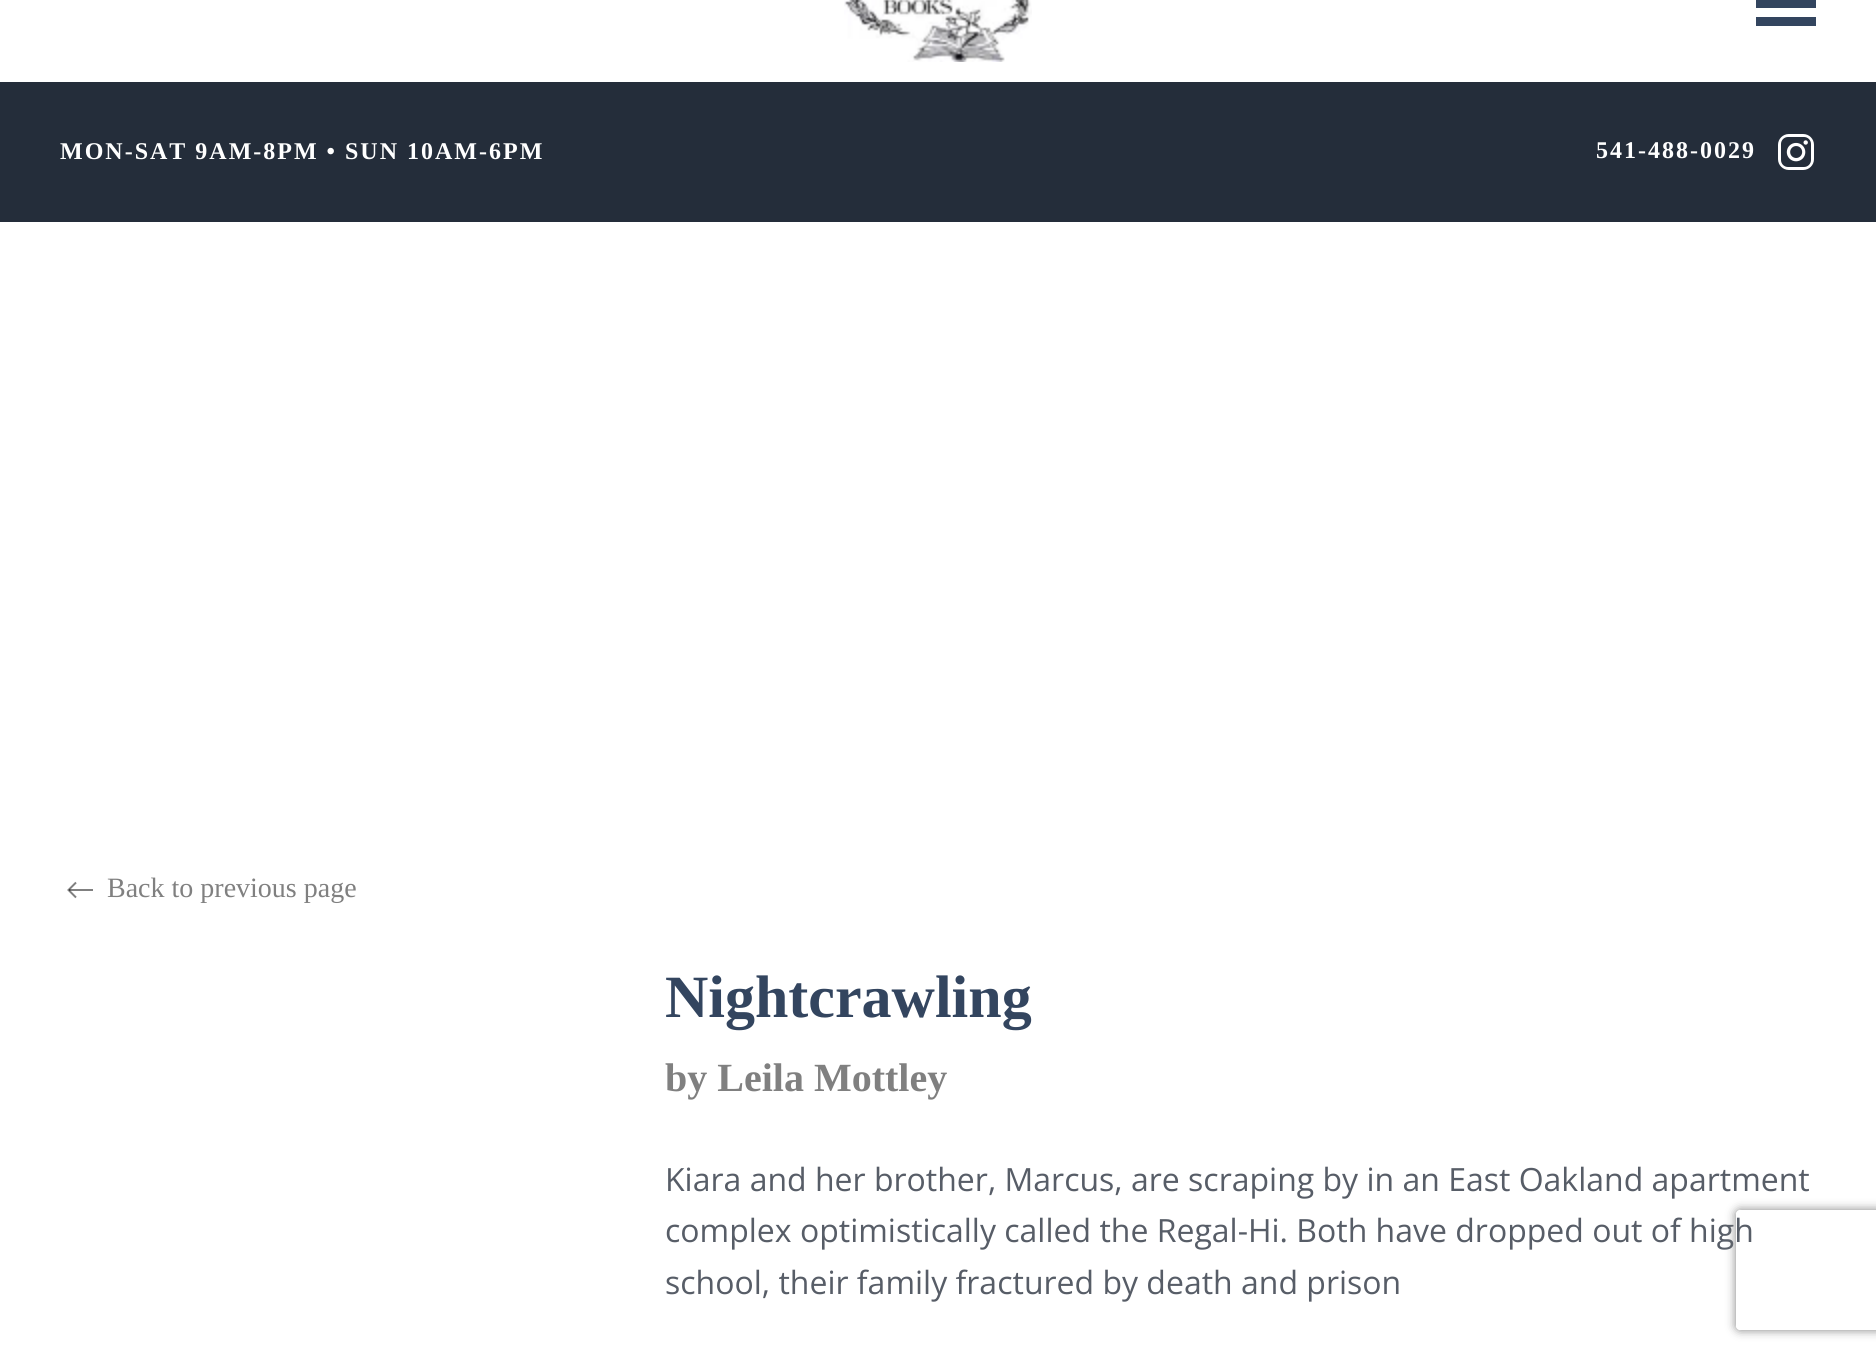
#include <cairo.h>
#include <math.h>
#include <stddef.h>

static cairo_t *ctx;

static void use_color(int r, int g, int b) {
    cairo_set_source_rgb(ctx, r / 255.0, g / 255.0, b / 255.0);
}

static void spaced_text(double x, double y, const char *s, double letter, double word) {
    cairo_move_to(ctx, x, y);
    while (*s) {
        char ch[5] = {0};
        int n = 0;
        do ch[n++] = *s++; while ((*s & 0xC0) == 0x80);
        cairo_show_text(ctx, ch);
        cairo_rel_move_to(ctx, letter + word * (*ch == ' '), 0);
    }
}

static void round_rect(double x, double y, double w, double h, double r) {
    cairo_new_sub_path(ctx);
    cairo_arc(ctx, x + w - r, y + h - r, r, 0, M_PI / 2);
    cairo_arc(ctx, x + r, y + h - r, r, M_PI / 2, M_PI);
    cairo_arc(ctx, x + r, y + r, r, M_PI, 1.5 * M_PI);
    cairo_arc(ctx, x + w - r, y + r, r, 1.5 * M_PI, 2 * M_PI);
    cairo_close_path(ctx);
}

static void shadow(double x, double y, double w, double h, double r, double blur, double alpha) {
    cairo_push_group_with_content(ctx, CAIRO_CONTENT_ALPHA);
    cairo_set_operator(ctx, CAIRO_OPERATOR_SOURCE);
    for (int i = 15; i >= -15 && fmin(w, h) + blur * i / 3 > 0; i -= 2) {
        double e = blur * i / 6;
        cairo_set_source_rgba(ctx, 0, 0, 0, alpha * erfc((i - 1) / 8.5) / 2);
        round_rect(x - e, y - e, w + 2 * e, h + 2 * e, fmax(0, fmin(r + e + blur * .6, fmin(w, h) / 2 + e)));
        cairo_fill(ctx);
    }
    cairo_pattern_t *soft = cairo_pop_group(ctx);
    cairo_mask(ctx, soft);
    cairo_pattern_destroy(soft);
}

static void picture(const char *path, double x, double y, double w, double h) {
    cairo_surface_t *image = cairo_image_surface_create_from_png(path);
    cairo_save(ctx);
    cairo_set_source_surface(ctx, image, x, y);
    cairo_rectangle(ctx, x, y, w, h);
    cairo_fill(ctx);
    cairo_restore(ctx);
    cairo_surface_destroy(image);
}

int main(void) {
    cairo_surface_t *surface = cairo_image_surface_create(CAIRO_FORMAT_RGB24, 1876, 1358);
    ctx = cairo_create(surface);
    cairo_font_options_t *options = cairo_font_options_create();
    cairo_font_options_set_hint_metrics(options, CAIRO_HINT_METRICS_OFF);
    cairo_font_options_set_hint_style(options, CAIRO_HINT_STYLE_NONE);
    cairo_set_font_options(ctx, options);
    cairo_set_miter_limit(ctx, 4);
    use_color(255, 255, 255);
    cairo_paint(ctx);
    picture("img1.png", 844, 0, 188, 62);
    use_color(51, 69, 95);
    cairo_rectangle(ctx, 1756, 0, 60, 8);
    cairo_fill(ctx);
    cairo_rectangle(ctx, 1756, 17, 60, 9);
    cairo_fill(ctx);
    use_color(36, 45, 58);
    cairo_rectangle(ctx, 0, 82, 1876, 140);
    cairo_fill(ctx);
    cairo_select_font_face(ctx, "Liberation Serif", CAIRO_FONT_SLANT_NORMAL, CAIRO_FONT_WEIGHT_BOLD);
    cairo_set_font_size(ctx, 24);
    use_color(255, 255, 255);
    spaced_text(60, 159, "MON-SAT 9AM-8PM • SUN 10AM-6PM", 2, 0);
    spaced_text(1596, 158, "541-488-0029", 2, 0);
    picture("img2.png", 1778, 134, 36, 36);
    use_color(128, 128, 128);
    cairo_rectangle(ctx, 69, 889, 24, 2);
    cairo_fill(ctx);
    cairo_new_path(ctx);
    cairo_move_to(ctx, 76, 882.5);
    cairo_line_to(ctx, 68.5, 890);
    cairo_line_to(ctx, 76, 897.5);
    cairo_set_source_rgba(ctx, 0, 0, 0, 0.5);
    cairo_stroke(ctx);
    cairo_select_font_face(ctx, "Liberation Serif", CAIRO_FONT_SLANT_NORMAL, CAIRO_FONT_WEIGHT_NORMAL);
    cairo_set_font_size(ctx, 28);
    use_color(128, 128, 128);
    cairo_move_to(ctx, 107, 897);
    cairo_show_text(ctx, "Back to previous page");
    cairo_select_font_face(ctx, "Liberation Serif", CAIRO_FONT_SLANT_NORMAL, CAIRO_FONT_WEIGHT_BOLD);
    cairo_set_font_size(ctx, 60);
    use_color(51, 69, 95);
    cairo_move_to(ctx, 665, 1017);
    cairo_show_text(ctx, "Nightcrawling");
    cairo_set_font_size(ctx, 40);
    use_color(128, 128, 128);
    cairo_move_to(ctx, 665, 1091);
    cairo_show_text(ctx, "by Leila Mottley");
    cairo_select_font_face(ctx, "Open Sans", CAIRO_FONT_SLANT_NORMAL, CAIRO_FONT_WEIGHT_NORMAL);
    cairo_set_font_size(ctx, 32);
    use_color(87, 93, 103);
    cairo_move_to(ctx, 665, 1191);
    cairo_show_text(ctx, "Kiara and her brother, Marcus, are scraping by in an East Oakland apartment");
    cairo_move_to(ctx, 665, 1242);
    cairo_show_text(ctx, "complex optimistically called the Regal-Hi. Both have dropped out of high");
    cairo_move_to(ctx, 665, 1294);
    cairo_show_text(ctx, "school, their family fractured by death and prison");
    cairo_save(ctx);
    cairo_set_fill_rule(ctx, CAIRO_FILL_RULE_EVEN_ODD);
    cairo_new_path(ctx);
    cairo_move_to(ctx, 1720, 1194);
    cairo_line_to(ctx, 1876, 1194);
    cairo_line_to(ctx, 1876, 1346);
    cairo_line_to(ctx, 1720, 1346);
    cairo_close_path(ctx);
    cairo_move_to(ctx, 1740, 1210);
    cairo_line_to(ctx, 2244, 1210);
    cairo_curve_to(ctx, 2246, 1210, 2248, 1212, 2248, 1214);
    cairo_line_to(ctx, 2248, 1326);
    cairo_curve_to(ctx, 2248, 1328, 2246, 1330, 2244, 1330);
    cairo_line_to(ctx, 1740, 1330);
    cairo_curve_to(ctx, 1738, 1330, 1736, 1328, 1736, 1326);
    cairo_line_to(ctx, 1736, 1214);
    cairo_curve_to(ctx, 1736, 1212, 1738, 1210, 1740, 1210);
    cairo_close_path(ctx);
    cairo_clip(ctx);
    use_color(128, 128, 128);
    shadow(1736, 1210, 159, 120, 4, 5, 1);
    cairo_restore(ctx);
    cairo_surface_write_to_png(surface, "result.png");
    cairo_font_options_destroy(options);
    cairo_destroy(ctx);
    cairo_surface_destroy(surface);
    return 0;
}
